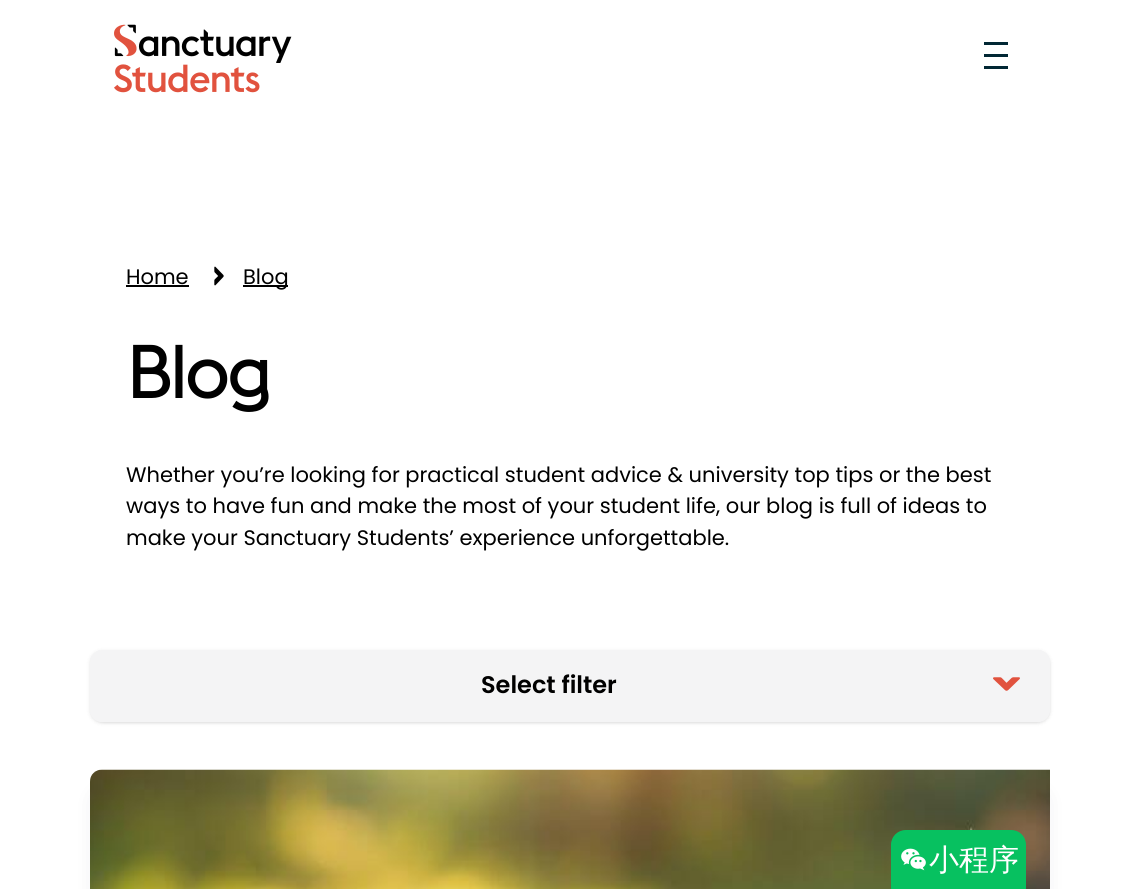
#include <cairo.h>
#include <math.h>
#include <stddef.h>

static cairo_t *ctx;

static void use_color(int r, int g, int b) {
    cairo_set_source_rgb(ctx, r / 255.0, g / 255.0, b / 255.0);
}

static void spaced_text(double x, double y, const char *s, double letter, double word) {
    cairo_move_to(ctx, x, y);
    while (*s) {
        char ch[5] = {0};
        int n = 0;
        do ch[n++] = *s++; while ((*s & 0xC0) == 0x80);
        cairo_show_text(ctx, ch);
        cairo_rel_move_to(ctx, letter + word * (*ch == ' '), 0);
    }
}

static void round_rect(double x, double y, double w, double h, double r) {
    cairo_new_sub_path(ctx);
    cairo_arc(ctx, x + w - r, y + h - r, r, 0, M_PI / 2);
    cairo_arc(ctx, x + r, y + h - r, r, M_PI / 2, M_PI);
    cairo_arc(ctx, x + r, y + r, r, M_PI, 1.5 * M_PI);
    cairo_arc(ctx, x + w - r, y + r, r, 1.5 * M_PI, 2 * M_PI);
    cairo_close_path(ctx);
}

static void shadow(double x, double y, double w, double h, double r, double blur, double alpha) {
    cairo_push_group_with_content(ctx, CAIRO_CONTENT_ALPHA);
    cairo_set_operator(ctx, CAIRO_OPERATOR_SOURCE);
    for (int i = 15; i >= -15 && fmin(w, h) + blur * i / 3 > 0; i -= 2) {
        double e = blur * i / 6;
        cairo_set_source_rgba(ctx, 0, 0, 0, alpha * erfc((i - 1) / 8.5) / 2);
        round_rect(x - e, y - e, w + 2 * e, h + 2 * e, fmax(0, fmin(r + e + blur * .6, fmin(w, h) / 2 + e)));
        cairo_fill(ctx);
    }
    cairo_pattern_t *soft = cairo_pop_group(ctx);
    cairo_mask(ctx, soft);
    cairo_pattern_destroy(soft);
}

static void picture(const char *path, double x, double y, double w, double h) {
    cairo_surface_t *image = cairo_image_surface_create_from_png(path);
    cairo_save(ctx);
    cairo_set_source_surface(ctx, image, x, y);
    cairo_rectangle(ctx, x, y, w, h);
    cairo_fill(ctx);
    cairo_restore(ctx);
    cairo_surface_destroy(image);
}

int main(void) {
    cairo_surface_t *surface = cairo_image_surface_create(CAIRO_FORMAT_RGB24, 1140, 889);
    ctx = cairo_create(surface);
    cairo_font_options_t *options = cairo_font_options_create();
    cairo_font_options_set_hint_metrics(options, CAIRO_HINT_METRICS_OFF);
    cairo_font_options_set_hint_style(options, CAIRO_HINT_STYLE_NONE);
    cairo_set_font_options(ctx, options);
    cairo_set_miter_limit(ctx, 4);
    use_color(255, 255, 255);
    cairo_paint(ctx);
    picture("img1.png", 114, 24, 178, 69);
    use_color(1, 39, 52);
    cairo_rectangle(ctx, 984, 42, 24, 3);
    cairo_fill(ctx);
    cairo_rectangle(ctx, 984, 54, 24, 3);
    cairo_fill(ctx);
    cairo_rectangle(ctx, 984, 66, 24, 3);
    cairo_fill(ctx);
    cairo_select_font_face(ctx, "Poppins", CAIRO_FONT_SLANT_NORMAL, CAIRO_FONT_WEIGHT_NORMAL);
    cairo_set_font_size(ctx, 21);
    use_color(0, 0, 0);
    cairo_move_to(ctx, 126, 284);
    cairo_show_text(ctx, "Home");
    cairo_rectangle(ctx, 126, 285, 63, 2);
    cairo_fill(ctx);
    picture("img2.png", 214, 266, 10, 20);
    cairo_rectangle(ctx, 243, 285, 45, 2);
    cairo_fill(ctx);
    cairo_move_to(ctx, 243, 284);
    cairo_show_text(ctx, "Blog");
    cairo_select_font_face(ctx, "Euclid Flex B", CAIRO_FONT_SLANT_NORMAL, CAIRO_FONT_WEIGHT_BOLD);
    cairo_set_font_size(ctx, 72);
    spaced_text(126, 398, "Blog", -1.5, 0);
    cairo_select_font_face(ctx, "Poppins", CAIRO_FONT_SLANT_NORMAL, CAIRO_FONT_WEIGHT_NORMAL);
    cairo_set_font_size(ctx, 21);
    cairo_move_to(ctx, 126, 482);
    cairo_show_text(ctx, "Whether you’re looking for practical student advice & university top tips or the best");
    cairo_move_to(ctx, 126, 513);
    cairo_show_text(ctx, "ways to have fun and make the most of your student life, our blog is full of ideas to");
    cairo_move_to(ctx, 126, 545);
    cairo_show_text(ctx, "make your Sanctuary Students’ experience unforgettable.");
    use_color(0, 0, 0);
    shadow(92, 653, 957, 69, 11, 1.5, 0.1);
    shadow(90, 651, 960, 72, 12, 2, 0.1);
    use_color(244, 244, 245);
    round_rect(90, 650, 960, 72, 12);
    cairo_fill(ctx);
    picture("img3.png", 993, 677, 27, 14);
    round_rect(91.5, 651.5, 957, 69, 10.5);
    cairo_set_line_width(ctx, 3);
    cairo_stroke(ctx);
    cairo_select_font_face(ctx, "Poppins SemiBold", CAIRO_FONT_SLANT_NORMAL, CAIRO_FONT_WEIGHT_NORMAL);
    cairo_set_font_size(ctx, 24);
    use_color(0, 0, 0);
    cairo_move_to(ctx, 481, 693);
    cairo_show_text(ctx, "Select filter");
    use_color(16, 24, 40);
    shadow(96, 794, 948, 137, 6, 12, 0.08);
    picture("img4.png", 90, 769, 960, 120);
    use_color(7, 193, 96);
    cairo_new_path(ctx);
    cairo_move_to(ctx, 906, 830);
    cairo_line_to(ctx, 1011, 830);
    cairo_curve_to(ctx, 1019.5, 830, 1026, 836.5, 1026, 845);
    cairo_line_to(ctx, 1026, 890);
    cairo_line_to(ctx, 891, 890);
    cairo_line_to(ctx, 891, 845);
    cairo_curve_to(ctx, 891, 836.5, 897.5, 830, 906, 830);
    cairo_close_path(ctx);
    cairo_fill(ctx);
    picture("img5.png", 901, 848, 25, 23);
    cairo_select_font_face(ctx, "WenQuanYi Zen Hei Medium", CAIRO_FONT_SLANT_NORMAL, CAIRO_FONT_WEIGHT_NORMAL);
    cairo_set_font_size(ctx, 30);
    use_color(255, 255, 255);
    cairo_move_to(ctx, 929, 870);
    cairo_show_text(ctx, "小程序");
    cairo_surface_write_to_png(surface, "result.png");
    cairo_font_options_destroy(options);
    cairo_destroy(ctx);
    cairo_surface_destroy(surface);
    return 0;
}
